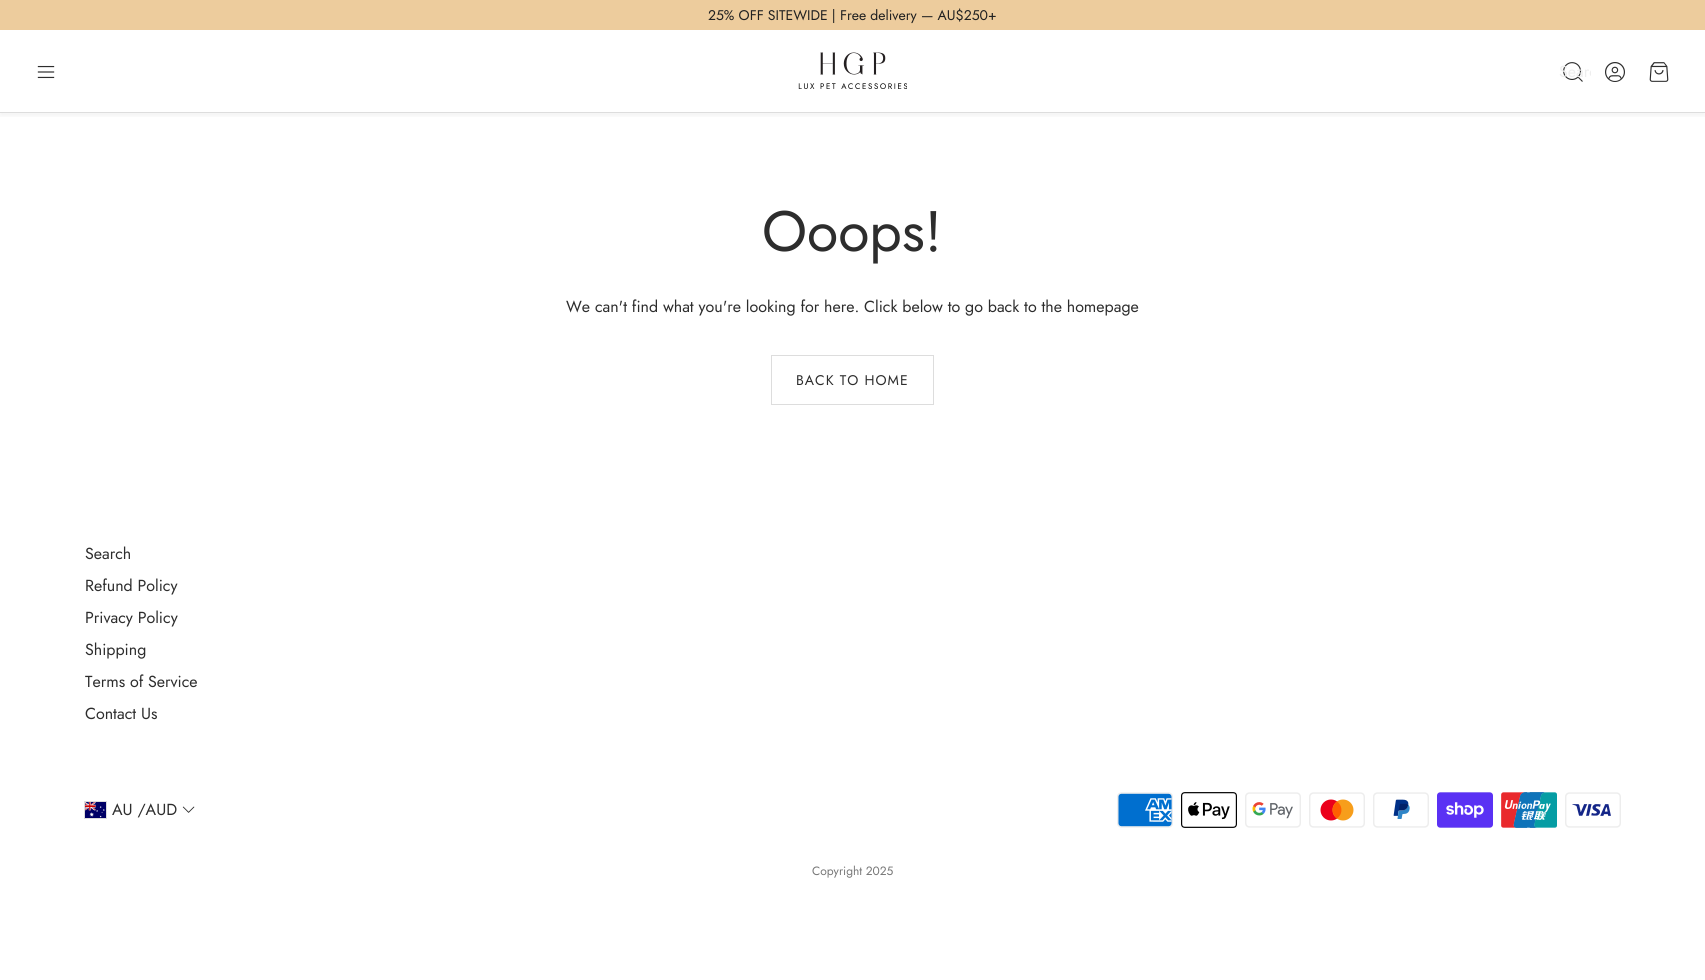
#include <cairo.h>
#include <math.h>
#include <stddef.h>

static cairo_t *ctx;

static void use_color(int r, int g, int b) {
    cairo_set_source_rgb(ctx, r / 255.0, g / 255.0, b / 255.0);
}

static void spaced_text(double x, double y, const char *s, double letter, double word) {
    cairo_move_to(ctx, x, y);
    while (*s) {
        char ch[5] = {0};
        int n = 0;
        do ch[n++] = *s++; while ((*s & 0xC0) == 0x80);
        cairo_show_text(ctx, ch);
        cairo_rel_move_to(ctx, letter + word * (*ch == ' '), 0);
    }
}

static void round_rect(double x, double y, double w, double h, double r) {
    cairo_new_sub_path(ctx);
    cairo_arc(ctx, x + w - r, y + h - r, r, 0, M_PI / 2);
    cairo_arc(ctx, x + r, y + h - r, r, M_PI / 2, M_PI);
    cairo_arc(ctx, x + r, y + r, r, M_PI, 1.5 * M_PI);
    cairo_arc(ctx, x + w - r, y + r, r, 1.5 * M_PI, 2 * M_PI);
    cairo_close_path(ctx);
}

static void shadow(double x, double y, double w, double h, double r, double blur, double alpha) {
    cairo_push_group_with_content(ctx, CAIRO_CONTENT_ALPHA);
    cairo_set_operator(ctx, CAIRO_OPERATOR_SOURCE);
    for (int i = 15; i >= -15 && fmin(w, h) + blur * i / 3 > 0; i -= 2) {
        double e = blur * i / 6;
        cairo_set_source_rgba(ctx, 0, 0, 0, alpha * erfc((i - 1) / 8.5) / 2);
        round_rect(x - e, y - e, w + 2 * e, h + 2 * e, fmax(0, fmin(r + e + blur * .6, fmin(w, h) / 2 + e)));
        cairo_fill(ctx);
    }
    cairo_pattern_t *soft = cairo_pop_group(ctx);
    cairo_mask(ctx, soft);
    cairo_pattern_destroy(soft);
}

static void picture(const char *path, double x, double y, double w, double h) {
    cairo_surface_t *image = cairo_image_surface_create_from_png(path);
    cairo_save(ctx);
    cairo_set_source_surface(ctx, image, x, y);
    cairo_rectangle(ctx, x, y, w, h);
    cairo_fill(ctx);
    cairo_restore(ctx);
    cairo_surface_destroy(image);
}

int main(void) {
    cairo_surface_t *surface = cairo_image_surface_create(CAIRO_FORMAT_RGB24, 1705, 980);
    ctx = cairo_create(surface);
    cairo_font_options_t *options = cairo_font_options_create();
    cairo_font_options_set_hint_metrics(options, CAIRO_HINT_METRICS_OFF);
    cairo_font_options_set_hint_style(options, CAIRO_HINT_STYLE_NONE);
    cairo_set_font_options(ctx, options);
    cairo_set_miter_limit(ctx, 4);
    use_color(255, 255, 255);
    cairo_paint(ctx);
    use_color(237, 204, 157);
    cairo_rectangle(ctx, 0, 0, 1705, 30);
    cairo_fill(ctx);
    cairo_select_font_face(ctx, "Jost", CAIRO_FONT_SLANT_NORMAL, CAIRO_FONT_WEIGHT_NORMAL);
    cairo_set_font_size(ctx, 14);
    use_color(33, 33, 33);
    cairo_move_to(ctx, 708, 20);
    cairo_show_text(ctx, "25% OFF SITEWIDE | Free delivery — AU$250+");
    cairo_save(ctx);
    cairo_rectangle(ctx, 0, 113, 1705, 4);
    cairo_clip(ctx);
    use_color(0, 0, 0);
    shadow(0, 33, 1705, 83, 0, 3, 0.05);
    cairo_restore(ctx);
    use_color(221, 221, 221);
    cairo_rectangle(ctx, 0, 112, 1705, 1);
    cairo_fill(ctx);
    picture("img1.png", 37, 65, 18, 14);
    picture("img2.png", 798, 52, 109, 37);
    picture("img3.png", 1563, 62, 20, 20);
    cairo_save(ctx);
    cairo_rectangle(ctx, 1559, 62, 32, 19);
    cairo_clip(ctx);
    cairo_set_font_size(ctx, 16);
    use_color(238, 238, 238);
    cairo_move_to(ctx, 1559, 77);
    cairo_show_text(ctx, "Searc");
    cairo_restore(ctx);
    picture("img4.png", 1605, 62, 20, 20);
    picture("img5.png", 1649, 62, 20, 20);
    cairo_set_font_size(ctx, 57);
    use_color(45, 45, 45);
    cairo_move_to(ctx, 762, 251);
    cairo_show_text(ctx, "Ooops!");
    cairo_set_font_size(ctx, 16);
    cairo_move_to(ctx, 566, 312);
    cairo_show_text(ctx, "We can't find what you're looking for here. Click below to go back to the homepage");
    cairo_rectangle(ctx, 771.5, 355.5, 162, 49);
    use_color(221, 221, 221);
    cairo_set_line_width(ctx, 1);
    cairo_stroke(ctx);
    cairo_set_font_size(ctx, 14);
    use_color(45, 45, 45);
    spaced_text(796, 385, "BACK TO HOME", 1, 0);
    cairo_set_font_size(ctx, 16);
    cairo_move_to(ctx, 85, 559);
    cairo_show_text(ctx, "Search");
    cairo_move_to(ctx, 85, 591);
    cairo_show_text(ctx, "Refund Policy");
    cairo_move_to(ctx, 85, 623);
    cairo_show_text(ctx, "Privacy Policy");
    cairo_move_to(ctx, 85, 655);
    cairo_show_text(ctx, "Shipping");
    cairo_move_to(ctx, 85, 687);
    cairo_show_text(ctx, "Terms of Service");
    cairo_move_to(ctx, 85, 719);
    cairo_show_text(ctx, "Contact Us");
    cairo_rectangle(ctx, 84.5, 801.5, 22, 17);
    use_color(221, 221, 221);
    cairo_stroke(ctx);
    picture("img6.png", 85, 802, 21, 16);
    use_color(45, 45, 45);
    cairo_move_to(ctx, 112, 815);
    cairo_show_text(ctx, "AU /AUD");
    picture("img7.png", 182, 806, 13, 7);
    picture("img8.png", 1117, 792, 56, 36);
    picture("img9.png", 1181, 792, 56, 36);
    picture("img10.png", 1245, 792, 56, 36);
    picture("img11.png", 1309, 792, 56, 36);
    picture("img12.png", 1373, 792, 56, 36);
    picture("img13.png", 1437, 792, 56, 36);
    picture("img14.png", 1501, 792, 56, 36);
    picture("img15.png", 1565, 792, 56, 36);
    cairo_set_font_size(ctx, 12);
    use_color(119, 119, 119);
    cairo_move_to(ctx, 812, 875);
    cairo_show_text(ctx, "Copyright 2025");
    cairo_surface_write_to_png(surface, "result.png");
    cairo_font_options_destroy(options);
    cairo_destroy(ctx);
    cairo_surface_destroy(surface);
    return 0;
}
